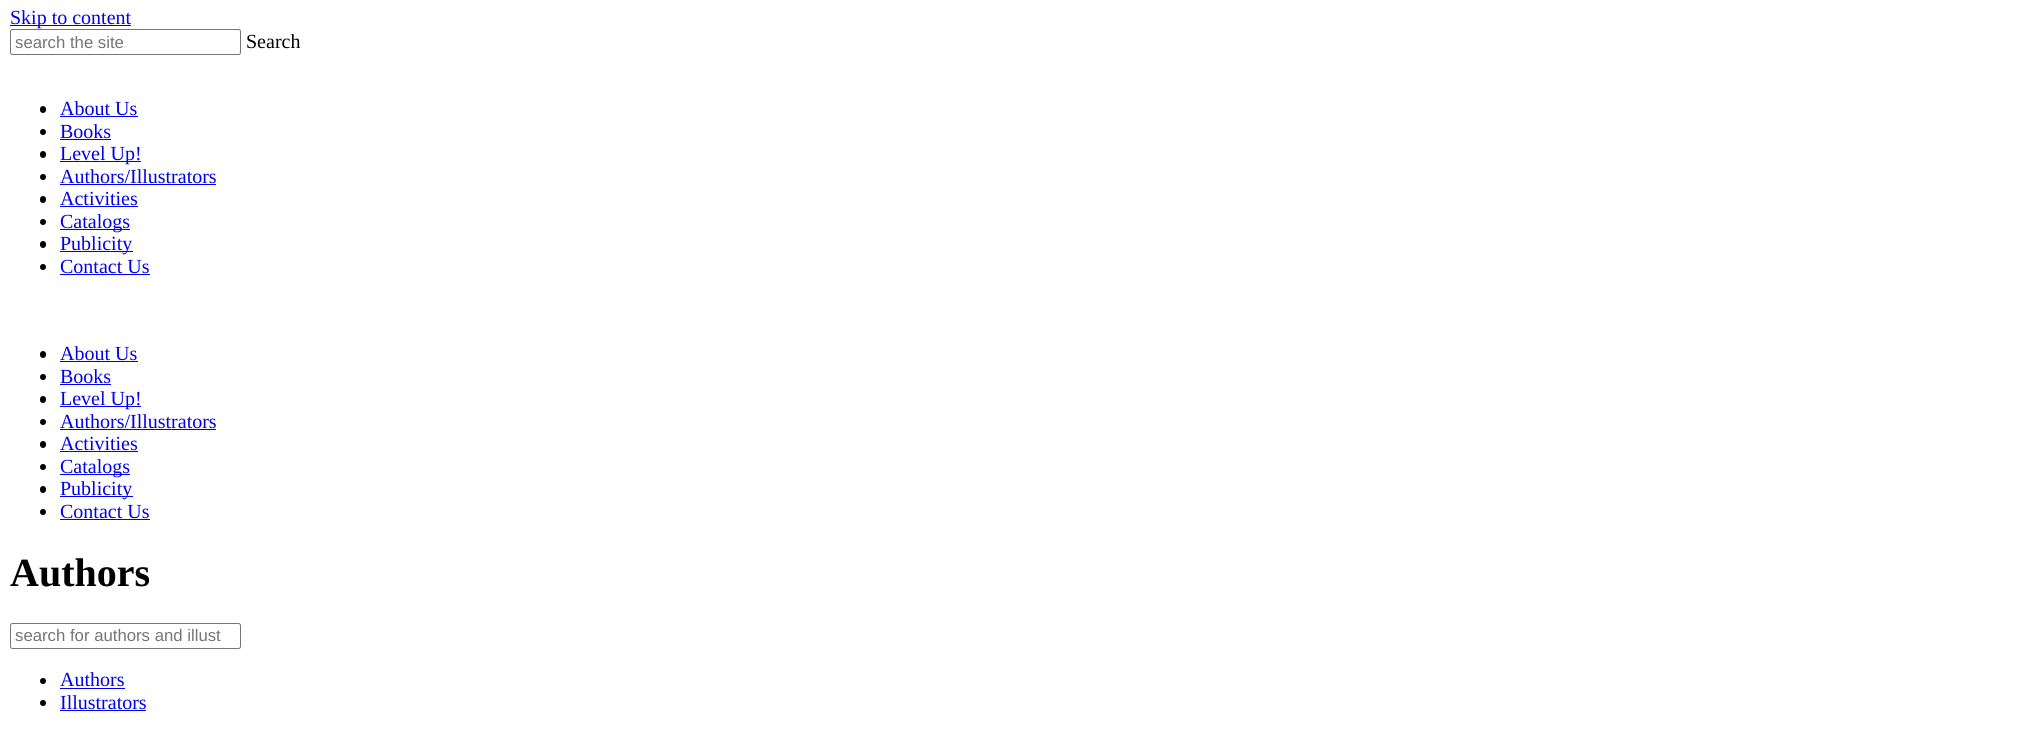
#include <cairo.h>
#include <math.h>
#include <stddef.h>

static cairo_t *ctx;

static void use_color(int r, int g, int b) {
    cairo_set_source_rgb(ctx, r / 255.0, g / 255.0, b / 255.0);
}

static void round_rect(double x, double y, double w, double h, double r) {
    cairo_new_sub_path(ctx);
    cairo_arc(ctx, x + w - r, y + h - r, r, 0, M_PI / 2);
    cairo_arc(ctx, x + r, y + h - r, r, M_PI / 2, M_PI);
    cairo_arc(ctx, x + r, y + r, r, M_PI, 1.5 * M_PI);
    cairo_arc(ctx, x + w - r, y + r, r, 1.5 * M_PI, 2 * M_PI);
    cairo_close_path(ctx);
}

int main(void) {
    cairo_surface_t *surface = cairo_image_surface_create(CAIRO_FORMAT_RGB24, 2018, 742);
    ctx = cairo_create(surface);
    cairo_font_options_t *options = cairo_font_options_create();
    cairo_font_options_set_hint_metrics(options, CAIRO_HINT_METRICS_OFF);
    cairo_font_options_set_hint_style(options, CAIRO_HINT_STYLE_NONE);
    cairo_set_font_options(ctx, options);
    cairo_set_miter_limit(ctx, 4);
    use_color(255, 255, 255);
    cairo_paint(ctx);
    use_color(0, 0, 238);
    cairo_rectangle(ctx, 10, 25, 121, 1);
    cairo_fill(ctx);
    cairo_select_font_face(ctx, "Liberation Serif", CAIRO_FONT_SLANT_NORMAL, CAIRO_FONT_WEIGHT_NORMAL);
    cairo_set_font_size(ctx, 20);
    cairo_move_to(ctx, 10, 24);
    cairo_show_text(ctx, "Skip to content");
    round_rect(10.5, 29.5, 230, 25, 2);
    use_color(118, 118, 118);
    cairo_set_line_width(ctx, 1);
    cairo_stroke(ctx);
    cairo_select_font_face(ctx, "Liberation Sans", CAIRO_FONT_SLANT_NORMAL, CAIRO_FONT_WEIGHT_NORMAL);
    cairo_set_font_size(ctx, 16.75);
    use_color(117, 117, 117);
    cairo_move_to(ctx, 15, 48);
    cairo_show_text(ctx, "search the site");
    cairo_select_font_face(ctx, "Liberation Serif", CAIRO_FONT_SLANT_NORMAL, CAIRO_FONT_WEIGHT_NORMAL);
    cairo_set_font_size(ctx, 20);
    use_color(0, 0, 0);
    cairo_move_to(ctx, 246, 48);
    cairo_show_text(ctx, "Search");
    round_rect(40, 106, 6, 7, 3);
    cairo_fill(ctx);
    use_color(0, 0, 238);
    cairo_move_to(ctx, 60, 115);
    cairo_show_text(ctx, "About Us");
    cairo_rectangle(ctx, 60, 116, 78, 1);
    cairo_fill(ctx);
    use_color(0, 0, 0);
    cairo_arc(ctx, 43, 132, 3, 0, 2 * M_PI);
    cairo_fill(ctx);
    use_color(0, 0, 238);
    cairo_move_to(ctx, 60, 138);
    cairo_show_text(ctx, "Books");
    cairo_rectangle(ctx, 60, 139, 51, 1);
    cairo_fill(ctx);
    use_color(0, 0, 0);
    round_rect(40, 151, 6, 7, 3);
    cairo_fill(ctx);
    use_color(0, 0, 238);
    cairo_rectangle(ctx, 60, 161, 81, 1);
    cairo_fill(ctx);
    cairo_move_to(ctx, 60, 160);
    cairo_show_text(ctx, "Level Up!");
    use_color(0, 0, 0);
    cairo_new_path(ctx);
    cairo_arc(ctx, 43, 177, 3, 0, 2 * M_PI);
    cairo_fill(ctx);
    use_color(0, 0, 238);
    cairo_move_to(ctx, 60, 183);
    cairo_show_text(ctx, "Authors/Illustrators");
    cairo_rectangle(ctx, 60, 184, 156, 1);
    cairo_fill(ctx);
    use_color(0, 0, 0);
    round_rect(40, 196, 6, 7, 3);
    cairo_fill(ctx);
    use_color(0, 0, 238);
    cairo_move_to(ctx, 60, 205);
    cairo_show_text(ctx, "Activities");
    cairo_rectangle(ctx, 60, 206, 78, 1);
    cairo_fill(ctx);
    use_color(0, 0, 0);
    cairo_arc(ctx, 43, 222, 3, 0, 2 * M_PI);
    cairo_fill(ctx);
    use_color(0, 0, 238);
    cairo_rectangle(ctx, 60, 229, 70, 1);
    cairo_fill(ctx);
    cairo_move_to(ctx, 60, 228);
    cairo_show_text(ctx, "Catalogs");
    use_color(0, 0, 0);
    round_rect(40, 241, 6, 7, 3);
    cairo_fill(ctx);
    use_color(0, 0, 238);
    cairo_rectangle(ctx, 60, 251, 73, 1);
    cairo_fill(ctx);
    cairo_move_to(ctx, 60, 250);
    cairo_show_text(ctx, "Publicity");
    use_color(0, 0, 0);
    cairo_new_path(ctx);
    cairo_arc(ctx, 43, 267, 3, 0, 2 * M_PI);
    cairo_fill(ctx);
    use_color(0, 0, 238);
    cairo_move_to(ctx, 60, 273);
    cairo_show_text(ctx, "Contact Us");
    cairo_rectangle(ctx, 60, 274, 90, 1);
    cairo_fill(ctx);
    use_color(0, 0, 0);
    round_rect(40, 351, 6, 7, 3);
    cairo_fill(ctx);
    use_color(0, 0, 238);
    cairo_move_to(ctx, 60, 360);
    cairo_show_text(ctx, "About Us");
    cairo_rectangle(ctx, 60, 361, 78, 1);
    cairo_fill(ctx);
    use_color(0, 0, 0);
    cairo_arc(ctx, 43, 377, 3, 0, 2 * M_PI);
    cairo_fill(ctx);
    use_color(0, 0, 238);
    cairo_move_to(ctx, 60, 383);
    cairo_show_text(ctx, "Books");
    cairo_rectangle(ctx, 60, 384, 51, 1);
    cairo_fill(ctx);
    use_color(0, 0, 0);
    round_rect(40, 396, 6, 7, 3);
    cairo_fill(ctx);
    use_color(0, 0, 238);
    cairo_rectangle(ctx, 60, 406, 81, 1);
    cairo_fill(ctx);
    cairo_move_to(ctx, 60, 405);
    cairo_show_text(ctx, "Level Up!");
    use_color(0, 0, 0);
    cairo_new_path(ctx);
    cairo_arc(ctx, 43, 422, 3, 0, 2 * M_PI);
    cairo_fill(ctx);
    use_color(0, 0, 238);
    cairo_move_to(ctx, 60, 428);
    cairo_show_text(ctx, "Authors/Illustrators");
    cairo_rectangle(ctx, 60, 429, 156, 1);
    cairo_fill(ctx);
    use_color(0, 0, 0);
    round_rect(40, 441, 6, 7, 3);
    cairo_fill(ctx);
    use_color(0, 0, 238);
    cairo_move_to(ctx, 60, 450);
    cairo_show_text(ctx, "Activities");
    cairo_rectangle(ctx, 60, 451, 78, 1);
    cairo_fill(ctx);
    use_color(0, 0, 0);
    cairo_arc(ctx, 43, 467, 3, 0, 2 * M_PI);
    cairo_fill(ctx);
    use_color(0, 0, 238);
    cairo_rectangle(ctx, 60, 474, 70, 1);
    cairo_fill(ctx);
    cairo_move_to(ctx, 60, 473);
    cairo_show_text(ctx, "Catalogs");
    use_color(0, 0, 0);
    round_rect(40, 486, 6, 7, 3);
    cairo_fill(ctx);
    use_color(0, 0, 238);
    cairo_rectangle(ctx, 60, 496, 73, 1);
    cairo_fill(ctx);
    cairo_move_to(ctx, 60, 495);
    cairo_show_text(ctx, "Publicity");
    use_color(0, 0, 0);
    cairo_new_path(ctx);
    cairo_arc(ctx, 43, 512, 3, 0, 2 * M_PI);
    cairo_fill(ctx);
    use_color(0, 0, 238);
    cairo_move_to(ctx, 60, 518);
    cairo_show_text(ctx, "Contact Us");
    cairo_rectangle(ctx, 60, 519, 90, 1);
    cairo_fill(ctx);
    cairo_select_font_face(ctx, "Liberation Serif", CAIRO_FONT_SLANT_NORMAL, CAIRO_FONT_WEIGHT_BOLD);
    cairo_set_font_size(ctx, 40);
    use_color(0, 0, 0);
    cairo_move_to(ctx, 10, 586);
    cairo_show_text(ctx, "Authors");
    round_rect(10.5, 623.5, 230, 25, 2);
    use_color(118, 118, 118);
    cairo_stroke(ctx);
    cairo_select_font_face(ctx, "Liberation Sans", CAIRO_FONT_SLANT_NORMAL, CAIRO_FONT_WEIGHT_NORMAL);
    cairo_set_font_size(ctx, 16.75);
    use_color(117, 117, 117);
    cairo_move_to(ctx, 15, 641);
    cairo_show_text(ctx, "search for authors and illust");
    use_color(0, 0, 0);
    cairo_new_path(ctx);
    cairo_arc(ctx, 43, 681, 3, 0, 2 * M_PI);
    cairo_fill(ctx);
    cairo_select_font_face(ctx, "Liberation Serif", CAIRO_FONT_SLANT_NORMAL, CAIRO_FONT_WEIGHT_NORMAL);
    cairo_set_font_size(ctx, 20);
    use_color(0, 0, 238);
    cairo_move_to(ctx, 60, 686);
    cairo_show_text(ctx, "Authors");
    cairo_rectangle(ctx, 60, 688, 65, 1);
    cairo_fill(ctx);
    use_color(0, 0, 0);
    cairo_arc(ctx, 43, 703, 3, 0, 2 * M_PI);
    cairo_fill(ctx);
    use_color(0, 0, 238);
    cairo_move_to(ctx, 60, 709);
    cairo_show_text(ctx, "Illustrators");
    cairo_rectangle(ctx, 60, 710, 86, 1);
    cairo_fill(ctx);
    cairo_surface_write_to_png(surface, "result.png");
    cairo_font_options_destroy(options);
    cairo_destroy(ctx);
    cairo_surface_destroy(surface);
    return 0;
}
